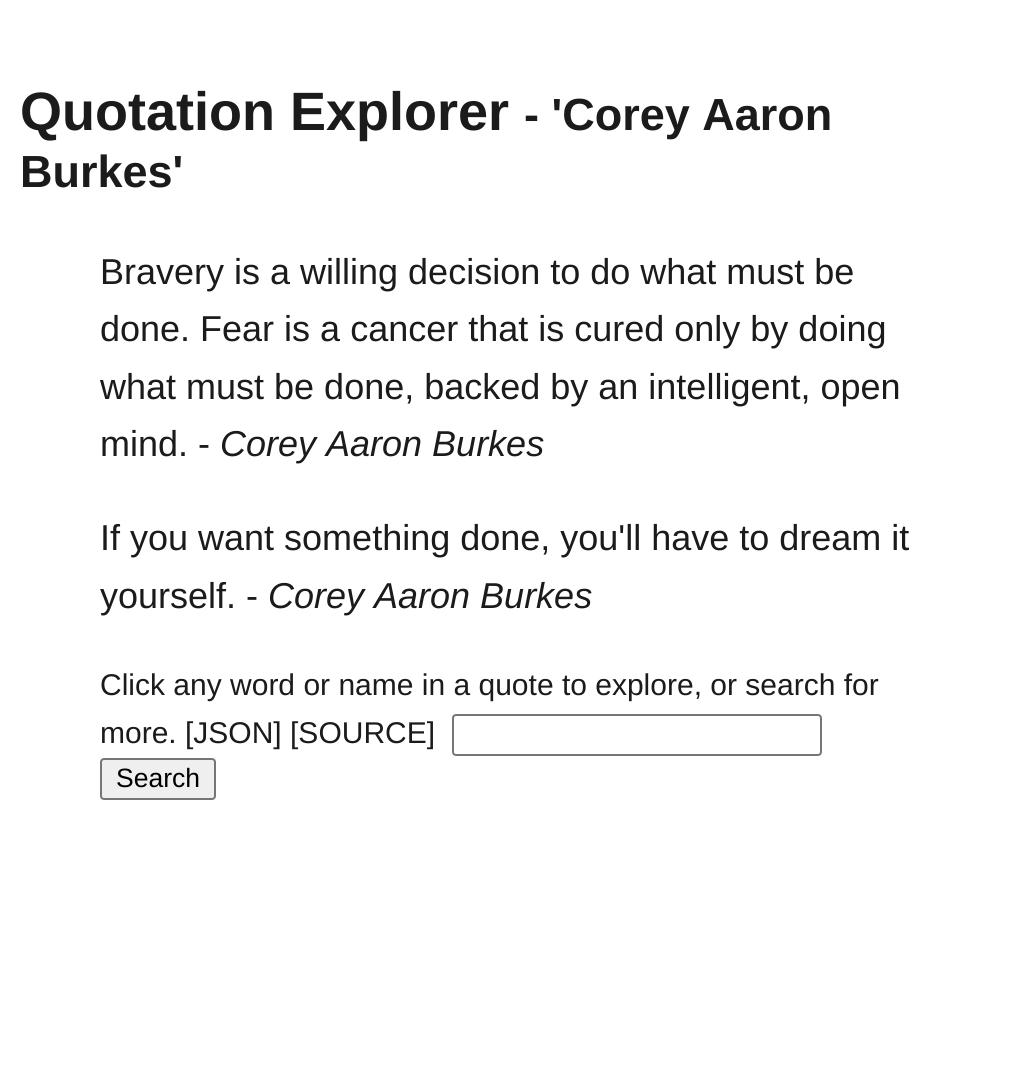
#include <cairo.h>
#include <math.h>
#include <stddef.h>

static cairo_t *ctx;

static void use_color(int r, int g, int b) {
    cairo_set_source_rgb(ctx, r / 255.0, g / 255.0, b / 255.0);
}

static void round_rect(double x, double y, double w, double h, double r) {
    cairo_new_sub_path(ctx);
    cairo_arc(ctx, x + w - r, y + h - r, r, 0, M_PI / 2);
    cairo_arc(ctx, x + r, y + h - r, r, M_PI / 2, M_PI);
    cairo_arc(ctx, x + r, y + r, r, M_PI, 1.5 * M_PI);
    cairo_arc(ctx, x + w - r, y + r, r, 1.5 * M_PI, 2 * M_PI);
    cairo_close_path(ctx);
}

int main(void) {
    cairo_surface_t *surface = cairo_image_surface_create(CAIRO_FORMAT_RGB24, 1028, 1072);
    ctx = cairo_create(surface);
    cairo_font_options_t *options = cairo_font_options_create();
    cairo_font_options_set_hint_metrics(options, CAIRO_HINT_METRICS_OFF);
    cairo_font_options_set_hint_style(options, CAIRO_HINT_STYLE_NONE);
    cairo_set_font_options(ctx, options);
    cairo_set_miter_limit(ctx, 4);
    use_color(255, 255, 255);
    cairo_paint(ctx);
    cairo_select_font_face(ctx, "Liberation Sans", CAIRO_FONT_SLANT_NORMAL, CAIRO_FONT_WEIGHT_BOLD);
    cairo_set_font_size(ctx, 54);
    use_color(27, 27, 27);
    cairo_move_to(ctx, 20, 130);
    cairo_show_text(ctx, "Quotation Explorer");
    cairo_set_font_size(ctx, 45);
    cairo_move_to(ctx, 524, 130);
    cairo_show_text(ctx, "- 'Corey Aaron");
    cairo_move_to(ctx, 20, 187);
    cairo_show_text(ctx, "Burkes'");
    cairo_select_font_face(ctx, "Liberation Sans", CAIRO_FONT_SLANT_NORMAL, CAIRO_FONT_WEIGHT_NORMAL);
    cairo_set_font_size(ctx, 36);
    cairo_move_to(ctx, 100, 284);
    cairo_show_text(ctx, "Bravery is a willing decision to do what must be");
    cairo_move_to(ctx, 100, 341);
    cairo_show_text(ctx, "done. Fear is a cancer that is cured only by doing");
    cairo_move_to(ctx, 100, 399);
    cairo_show_text(ctx, "what must be done, backed by an intelligent, open");
    cairo_move_to(ctx, 100, 456);
    cairo_show_text(ctx, "mind. -");
    cairo_select_font_face(ctx, "Liberation Sans", CAIRO_FONT_SLANT_ITALIC, CAIRO_FONT_WEIGHT_NORMAL);
    cairo_move_to(ctx, 220, 456);
    cairo_show_text(ctx, "Corey Aaron Burkes");
    cairo_select_font_face(ctx, "Liberation Sans", CAIRO_FONT_SLANT_NORMAL, CAIRO_FONT_WEIGHT_NORMAL);
    cairo_move_to(ctx, 100, 550);
    cairo_show_text(ctx, "If you want something done, you'll have to dream it");
    cairo_move_to(ctx, 100, 608);
    cairo_show_text(ctx, "yourself. -");
    cairo_select_font_face(ctx, "Liberation Sans", CAIRO_FONT_SLANT_ITALIC, CAIRO_FONT_WEIGHT_NORMAL);
    cairo_move_to(ctx, 268, 608);
    cairo_show_text(ctx, "Corey Aaron Burkes");
    cairo_select_font_face(ctx, "Liberation Sans", CAIRO_FONT_SLANT_NORMAL, CAIRO_FONT_WEIGHT_NORMAL);
    cairo_set_font_size(ctx, 30);
    cairo_move_to(ctx, 100, 695);
    cairo_show_text(ctx, "Click any word or name in a quote to explore, or search for");
    cairo_move_to(ctx, 100, 743);
    cairo_show_text(ctx, "more. [JSON] [SOURCE]");
    round_rect(453, 715, 368, 40, 3);
    use_color(118, 118, 118);
    cairo_stroke(ctx);
    use_color(239, 239, 239);
    round_rect(101, 759, 114, 40, 3);
    cairo_fill_preserve(ctx);
    use_color(118, 118, 118);
    cairo_stroke(ctx);
    cairo_set_font_size(ctx, 26.5);
    use_color(0, 0, 0);
    cairo_move_to(ctx, 116, 787);
    cairo_show_text(ctx, "Search");
    cairo_surface_write_to_png(surface, "result.png");
    cairo_font_options_destroy(options);
    cairo_destroy(ctx);
    cairo_surface_destroy(surface);
    return 0;
}
